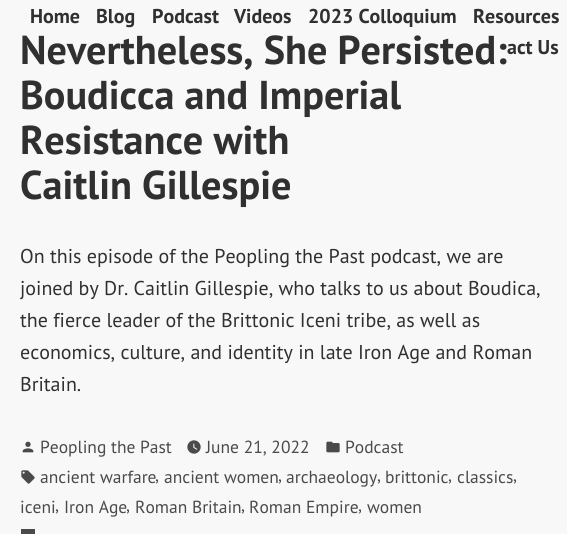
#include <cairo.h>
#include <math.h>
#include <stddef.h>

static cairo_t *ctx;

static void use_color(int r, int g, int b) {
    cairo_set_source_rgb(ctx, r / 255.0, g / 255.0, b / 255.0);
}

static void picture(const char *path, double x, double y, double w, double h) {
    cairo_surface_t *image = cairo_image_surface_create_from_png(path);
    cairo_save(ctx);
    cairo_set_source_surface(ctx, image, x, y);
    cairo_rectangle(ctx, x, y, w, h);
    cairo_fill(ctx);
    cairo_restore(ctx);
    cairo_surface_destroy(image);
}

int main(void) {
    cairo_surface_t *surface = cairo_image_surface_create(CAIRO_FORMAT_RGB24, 567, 534);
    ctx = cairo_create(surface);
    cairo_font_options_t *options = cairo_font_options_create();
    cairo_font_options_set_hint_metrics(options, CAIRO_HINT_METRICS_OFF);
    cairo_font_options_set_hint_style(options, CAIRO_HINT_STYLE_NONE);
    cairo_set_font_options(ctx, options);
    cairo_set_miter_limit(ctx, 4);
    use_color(248, 248, 248);
    cairo_paint(ctx);
    cairo_select_font_face(ctx, "PT Sans", CAIRO_FONT_SLANT_NORMAL, CAIRO_FONT_WEIGHT_BOLD);
    cairo_set_font_size(ctx, 20);
    use_color(48, 48, 48);
    cairo_move_to(ctx, 30, 23);
    cairo_show_text(ctx, "Home");
    cairo_move_to(ctx, 96, 23);
    cairo_show_text(ctx, "Blog");
    cairo_move_to(ctx, 152, 23);
    cairo_show_text(ctx, "Podcast");
    cairo_move_to(ctx, 234, 23);
    cairo_show_text(ctx, "Videos");
    cairo_move_to(ctx, 308, 23);
    cairo_show_text(ctx, "2023 Colloquium");
    cairo_move_to(ctx, 473, 23);
    cairo_show_text(ctx, "Resources");
    cairo_move_to(ctx, 507, 54);
    cairo_show_text(ctx, "act Us");
    cairo_set_font_size(ctx, 40.25);
    cairo_move_to(ctx, 20, 64);
    cairo_show_text(ctx, "Nevertheless, She Persisted:");
    cairo_move_to(ctx, 20, 109);
    cairo_show_text(ctx, "Boudicca and Imperial");
    cairo_move_to(ctx, 20, 154);
    cairo_show_text(ctx, "Resistance with");
    cairo_move_to(ctx, 20, 199);
    cairo_show_text(ctx, "Caitlin Gillespie");
    cairo_select_font_face(ctx, "PT Sans", CAIRO_FONT_SLANT_NORMAL, CAIRO_FONT_WEIGHT_NORMAL);
    cairo_set_font_size(ctx, 20);
    cairo_move_to(ctx, 20, 263);
    cairo_show_text(ctx, "On this episode of the Peopling the Past podcast, we are");
    cairo_move_to(ctx, 20, 295);
    cairo_show_text(ctx, "joined by Dr. Caitlin Gillespie, who talks to us about Boudica,");
    cairo_move_to(ctx, 20, 327);
    cairo_show_text(ctx, "the fierce leader of the Brittonic Iceni tribe, as well as");
    cairo_move_to(ctx, 20, 359);
    cairo_show_text(ctx, "economics, culture, and identity in late Iron Age and Roman");
    cairo_move_to(ctx, 20, 391);
    cairo_show_text(ctx, "Britain.");
    picture("img1.png", 22, 441, 12, 12);
    cairo_set_font_size(ctx, 17.5);
    use_color(74, 74, 74);
    cairo_move_to(ctx, 40, 453);
    cairo_show_text(ctx, "Peopling the Past");
    picture("img2.png", 187, 440, 14, 14);
    cairo_move_to(ctx, 206, 453);
    cairo_show_text(ctx, "June 21, 2022");
    picture("img3.png", 326, 441, 14, 12);
    cairo_move_to(ctx, 345, 453);
    cairo_show_text(ctx, "Podcast");
    picture("img4.png", 21, 470, 14, 14);
    cairo_move_to(ctx, 40, 483);
    cairo_show_text(ctx, "ancient warfare");
    cairo_move_to(ctx, 155, 481);
    cairo_show_text(ctx, ",");
    cairo_move_to(ctx, 164, 483);
    cairo_show_text(ctx, "ancient women");
    cairo_move_to(ctx, 278, 481);
    cairo_show_text(ctx, ",");
    cairo_move_to(ctx, 286, 483);
    cairo_show_text(ctx, "archaeology");
    cairo_move_to(ctx, 377, 481);
    cairo_show_text(ctx, ",");
    cairo_move_to(ctx, 385, 483);
    cairo_show_text(ctx, "brittonic");
    cairo_move_to(ctx, 448, 481);
    cairo_show_text(ctx, ",");
    cairo_move_to(ctx, 457, 483);
    cairo_show_text(ctx, "classics");
    cairo_move_to(ctx, 513, 481);
    cairo_show_text(ctx, ",");
    cairo_move_to(ctx, 20, 513);
    cairo_show_text(ctx, "iceni");
    cairo_move_to(ctx, 55, 511);
    cairo_show_text(ctx, ",");
    cairo_move_to(ctx, 64, 513);
    cairo_show_text(ctx, "Iron Age");
    cairo_move_to(ctx, 126, 511);
    cairo_show_text(ctx, ",");
    cairo_move_to(ctx, 135, 513);
    cairo_show_text(ctx, "Roman Britain");
    cairo_move_to(ctx, 241, 511);
    cairo_show_text(ctx, ",");
    cairo_move_to(ctx, 249, 513);
    cairo_show_text(ctx, "Roman Empire");
    cairo_move_to(ctx, 358, 511);
    cairo_show_text(ctx, ",");
    cairo_move_to(ctx, 367, 513);
    cairo_show_text(ctx, "women");
    cairo_rectangle(ctx, 21, 529, 14, 5);
    cairo_fill(ctx);
    cairo_surface_write_to_png(surface, "result.png");
    cairo_font_options_destroy(options);
    cairo_destroy(ctx);
    cairo_surface_destroy(surface);
    return 0;
}
